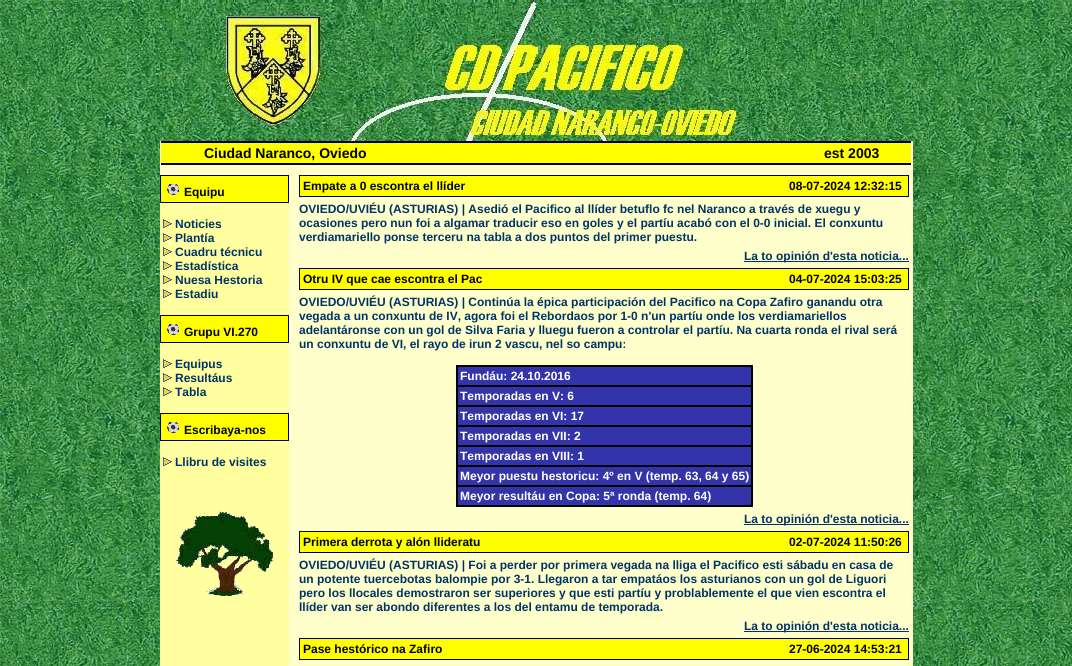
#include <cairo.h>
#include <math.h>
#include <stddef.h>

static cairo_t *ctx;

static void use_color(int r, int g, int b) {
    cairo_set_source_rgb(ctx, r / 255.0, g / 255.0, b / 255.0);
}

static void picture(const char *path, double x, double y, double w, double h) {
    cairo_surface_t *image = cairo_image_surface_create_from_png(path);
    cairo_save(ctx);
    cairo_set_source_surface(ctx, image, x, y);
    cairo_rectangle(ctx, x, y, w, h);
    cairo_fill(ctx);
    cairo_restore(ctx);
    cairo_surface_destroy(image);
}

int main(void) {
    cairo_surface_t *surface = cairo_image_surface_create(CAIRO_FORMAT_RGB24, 1072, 666);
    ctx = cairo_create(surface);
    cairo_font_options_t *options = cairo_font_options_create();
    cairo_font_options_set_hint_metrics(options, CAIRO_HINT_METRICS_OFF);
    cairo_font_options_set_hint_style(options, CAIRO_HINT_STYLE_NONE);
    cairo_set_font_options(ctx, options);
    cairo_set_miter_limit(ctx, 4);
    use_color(255, 255, 255);
    cairo_paint(ctx);
    picture("img1.png", 0, 0, 1072, 666);
    use_color(255, 255, 204);
    cairo_rectangle(ctx, 160, 141, 753, 525);
    cairo_fill(ctx);
    picture("img2.png", 160, 0, 753, 141);
    use_color(0, 0, 0);
    cairo_rectangle(ctx, 161, 141, 750, 2);
    cairo_fill(ctx);
    use_color(255, 255, 0);
    cairo_rectangle(ctx, 161, 143, 750, 20);
    cairo_fill(ctx);
    cairo_select_font_face(ctx, "Liberation Sans", CAIRO_FONT_SLANT_NORMAL, CAIRO_FONT_WEIGHT_BOLD);
    cairo_set_font_size(ctx, 14);
    use_color(0, 0, 0);
    cairo_move_to(ctx, 204, 158);
    cairo_show_text(ctx, "Ciudad Naranco, Oviedo");
    cairo_move_to(ctx, 824, 158);
    cairo_show_text(ctx, "est 2003");
    cairo_rectangle(ctx, 161, 163, 750, 2);
    cairo_fill(ctx);
    use_color(255, 255, 160);
    cairo_rectangle(ctx, 160, 203, 129, 463);
    cairo_fill(ctx);
    use_color(0, 0, 0);
    cairo_rectangle(ctx, 160, 175, 129, 28);
    cairo_fill(ctx);
    use_color(255, 255, 0);
    cairo_rectangle(ctx, 161, 176, 127, 26);
    cairo_fill(ctx);
    picture("img3.png", 167, 184, 12, 11);
    cairo_set_font_size(ctx, 12);
    use_color(0, 0, 0);
    cairo_move_to(ctx, 184, 196);
    cairo_show_text(ctx, "Equipu");
    picture("img4.png", 163, 219, 9, 9);
    use_color(0, 51, 102);
    cairo_move_to(ctx, 175, 228);
    cairo_show_text(ctx, "Noticies");
    picture("img4.png", 163, 233, 9, 9);
    cairo_move_to(ctx, 175, 242);
    cairo_show_text(ctx, "Plantía");
    picture("img4.png", 163, 247, 9, 9);
    cairo_move_to(ctx, 175, 256);
    cairo_show_text(ctx, "Cuadru técnicu");
    picture("img4.png", 163, 261, 9, 9);
    cairo_move_to(ctx, 175, 270);
    cairo_show_text(ctx, "Estadística");
    picture("img4.png", 163, 275, 9, 9);
    cairo_move_to(ctx, 175, 284);
    cairo_show_text(ctx, "Nuesa Hestoria");
    picture("img4.png", 163, 289, 9, 9);
    cairo_move_to(ctx, 175, 298);
    cairo_show_text(ctx, "Estadiu");
    use_color(0, 0, 0);
    cairo_rectangle(ctx, 160, 315, 129, 28);
    cairo_fill(ctx);
    use_color(255, 255, 0);
    cairo_rectangle(ctx, 161, 316, 127, 26);
    cairo_fill(ctx);
    picture("img3.png", 167, 324, 12, 11);
    use_color(0, 0, 0);
    cairo_move_to(ctx, 184, 336);
    cairo_show_text(ctx, "Grupu VI.270");
    picture("img4.png", 163, 359, 9, 9);
    use_color(0, 51, 102);
    cairo_move_to(ctx, 175, 368);
    cairo_show_text(ctx, "Equipus");
    picture("img4.png", 163, 373, 9, 9);
    cairo_move_to(ctx, 175, 382);
    cairo_show_text(ctx, "Resultáus");
    picture("img4.png", 163, 387, 9, 9);
    cairo_move_to(ctx, 175, 396);
    cairo_show_text(ctx, "Tabla");
    use_color(0, 0, 0);
    cairo_rectangle(ctx, 160, 413, 129, 28);
    cairo_fill(ctx);
    use_color(255, 255, 0);
    cairo_rectangle(ctx, 161, 414, 127, 26);
    cairo_fill(ctx);
    picture("img3.png", 167, 422, 12, 11);
    use_color(0, 0, 0);
    cairo_move_to(ctx, 184, 434);
    cairo_show_text(ctx, "Escribaya-nos");
    picture("img4.png", 163, 457, 9, 9);
    use_color(0, 51, 102);
    cairo_move_to(ctx, 175, 466);
    cairo_show_text(ctx, "Llibru de visites");
    picture("img5.png", 176, 511, 97, 85);
    use_color(0, 0, 0);
    cairo_rectangle(ctx, 299, 175, 610, 22);
    cairo_fill(ctx);
    use_color(255, 255, 0);
    cairo_rectangle(ctx, 300, 176, 608, 20);
    cairo_fill(ctx);
    use_color(0, 0, 0);
    cairo_move_to(ctx, 303, 190);
    cairo_show_text(ctx, "Empate a 0 escontra el llíder");
    cairo_move_to(ctx, 789, 190);
    cairo_show_text(ctx, "08-07-2024 12:32:15");
    use_color(0, 51, 102);
    cairo_move_to(ctx, 299, 213);
    cairo_show_text(ctx, "OVIEDO/UVIÉU (ASTURIAS) | Asedió el Pacifico al llíder betuflo fc nel Naranco a través de xuegu y");
    cairo_move_to(ctx, 299, 227);
    cairo_show_text(ctx, "ocasiones pero nun foi a algamar traducir eso en goles y el partíu acabó con el 0-0 inicial. El conxuntu");
    cairo_move_to(ctx, 299, 241);
    cairo_show_text(ctx, "verdiamariello ponse terceru na tabla a dos puntos del primer puestu.");
    cairo_rectangle(ctx, 744, 261, 165, 1);
    cairo_fill(ctx);
    cairo_move_to(ctx, 744, 260);
    cairo_show_text(ctx, "La to opinión d'esta noticia...");
    use_color(0, 0, 0);
    cairo_rectangle(ctx, 299, 268, 610, 22);
    cairo_fill(ctx);
    use_color(255, 255, 0);
    cairo_rectangle(ctx, 300, 269, 608, 20);
    cairo_fill(ctx);
    use_color(0, 0, 0);
    cairo_move_to(ctx, 303, 283);
    cairo_show_text(ctx, "Otru IV que cae escontra el Pac");
    cairo_move_to(ctx, 789, 283);
    cairo_show_text(ctx, "04-07-2024 15:03:25");
    use_color(0, 51, 102);
    cairo_move_to(ctx, 299, 306);
    cairo_show_text(ctx, "OVIEDO/UVIÉU (ASTURIAS) | Continúa la épica participación del Pacifico na Copa Zafiro ganandu otra");
    cairo_move_to(ctx, 299, 320);
    cairo_show_text(ctx, "vegada a un conxuntu de IV, agora foi el Rebordaos por 1-0 n'un partíu onde los verdiamariellos");
    cairo_move_to(ctx, 299, 334);
    cairo_show_text(ctx, "adelantáronse con un gol de Silva Faria y lluegu fueron a controlar el partíu. Na cuarta ronda el rival será");
    cairo_move_to(ctx, 299, 348);
    cairo_show_text(ctx, "un conxuntu de VI, el rayo de irun 2 vascu, nel so campu:");
    cairo_rectangle(ctx, 456.5, 365.5, 296, 141);
    use_color(0, 0, 0);
    cairo_set_line_width(ctx, 1);
    cairo_stroke(ctx);
    use_color(51, 51, 170);
    cairo_rectangle(ctx, 457.5, 366.5, 294, 19);
    cairo_fill_preserve(ctx);
    use_color(0, 0, 0);
    cairo_stroke(ctx);
    use_color(255, 255, 255);
    cairo_move_to(ctx, 460, 380);
    cairo_show_text(ctx, "Fundáu: 24.10.2016");
    use_color(51, 51, 170);
    cairo_rectangle(ctx, 457.5, 386.5, 294, 19);
    cairo_fill_preserve(ctx);
    use_color(0, 0, 0);
    cairo_stroke(ctx);
    use_color(255, 255, 255);
    cairo_move_to(ctx, 460, 400);
    cairo_show_text(ctx, "Temporadas en V: 6");
    use_color(51, 51, 170);
    cairo_rectangle(ctx, 457.5, 406.5, 294, 19);
    cairo_fill_preserve(ctx);
    use_color(0, 0, 0);
    cairo_stroke(ctx);
    use_color(255, 255, 255);
    cairo_move_to(ctx, 460, 420);
    cairo_show_text(ctx, "Temporadas en VI: 17");
    use_color(51, 51, 170);
    cairo_rectangle(ctx, 457.5, 426.5, 294, 19);
    cairo_fill_preserve(ctx);
    use_color(0, 0, 0);
    cairo_stroke(ctx);
    use_color(255, 255, 255);
    cairo_move_to(ctx, 460, 440);
    cairo_show_text(ctx, "Temporadas en VII: 2");
    use_color(51, 51, 170);
    cairo_rectangle(ctx, 457.5, 446.5, 294, 19);
    cairo_fill_preserve(ctx);
    use_color(0, 0, 0);
    cairo_stroke(ctx);
    use_color(255, 255, 255);
    cairo_move_to(ctx, 460, 460);
    cairo_show_text(ctx, "Temporadas en VIII: 1");
    use_color(51, 51, 170);
    cairo_rectangle(ctx, 457.5, 466.5, 294, 19);
    cairo_fill_preserve(ctx);
    use_color(0, 0, 0);
    cairo_stroke(ctx);
    use_color(255, 255, 255);
    cairo_move_to(ctx, 460, 480);
    cairo_show_text(ctx, "Meyor puestu hestoricu: 4º en V (temp. 63, 64 y 65)");
    use_color(51, 51, 170);
    cairo_rectangle(ctx, 457.5, 486.5, 294, 19);
    cairo_fill_preserve(ctx);
    use_color(0, 0, 0);
    cairo_stroke(ctx);
    use_color(255, 255, 255);
    cairo_move_to(ctx, 460, 500);
    cairo_show_text(ctx, "Meyor resultáu en Copa: 5ª ronda (temp. 64)");
    use_color(0, 51, 102);
    cairo_rectangle(ctx, 744, 524, 165, 1);
    cairo_fill(ctx);
    cairo_move_to(ctx, 744, 523);
    cairo_show_text(ctx, "La to opinión d'esta noticia...");
    use_color(0, 0, 0);
    cairo_rectangle(ctx, 299, 531, 610, 22);
    cairo_fill(ctx);
    use_color(255, 255, 0);
    cairo_rectangle(ctx, 300, 532, 608, 20);
    cairo_fill(ctx);
    use_color(0, 0, 0);
    cairo_move_to(ctx, 303, 546);
    cairo_show_text(ctx, "Primera derrota y alón llideratu");
    cairo_move_to(ctx, 789, 546);
    cairo_show_text(ctx, "02-07-2024 11:50:26");
    use_color(0, 51, 102);
    cairo_move_to(ctx, 299, 569);
    cairo_show_text(ctx, "OVIEDO/UVIÉU (ASTURIAS) | Foi a perder por primera vegada na lliga el Pacifico esti sábadu en casa de");
    cairo_move_to(ctx, 299, 583);
    cairo_show_text(ctx, "un potente tuercebotas balompie por 3-1. Llegaron a tar empatáos los asturianos con un gol de Liguori");
    cairo_move_to(ctx, 299, 597);
    cairo_show_text(ctx, "pero los llocales demostraron ser superiores y que esti partíu y problablemente el que vien escontra el");
    cairo_move_to(ctx, 299, 611);
    cairo_show_text(ctx, "llíder van ser abondo diferentes a los del entamu de temporada.");
    cairo_rectangle(ctx, 744, 631, 165, 1);
    cairo_fill(ctx);
    cairo_move_to(ctx, 744, 630);
    cairo_show_text(ctx, "La to opinión d'esta noticia...");
    use_color(0, 0, 0);
    cairo_rectangle(ctx, 299, 638, 610, 22);
    cairo_fill(ctx);
    use_color(255, 255, 0);
    cairo_rectangle(ctx, 300, 639, 608, 20);
    cairo_fill(ctx);
    use_color(0, 0, 0);
    cairo_move_to(ctx, 303, 653);
    cairo_show_text(ctx, "Pase hestórico na Zafiro");
    cairo_move_to(ctx, 789, 653);
    cairo_show_text(ctx, "27-06-2024 14:53:21");
    cairo_surface_write_to_png(surface, "result.png");
    cairo_font_options_destroy(options);
    cairo_destroy(ctx);
    cairo_surface_destroy(surface);
    return 0;
}
